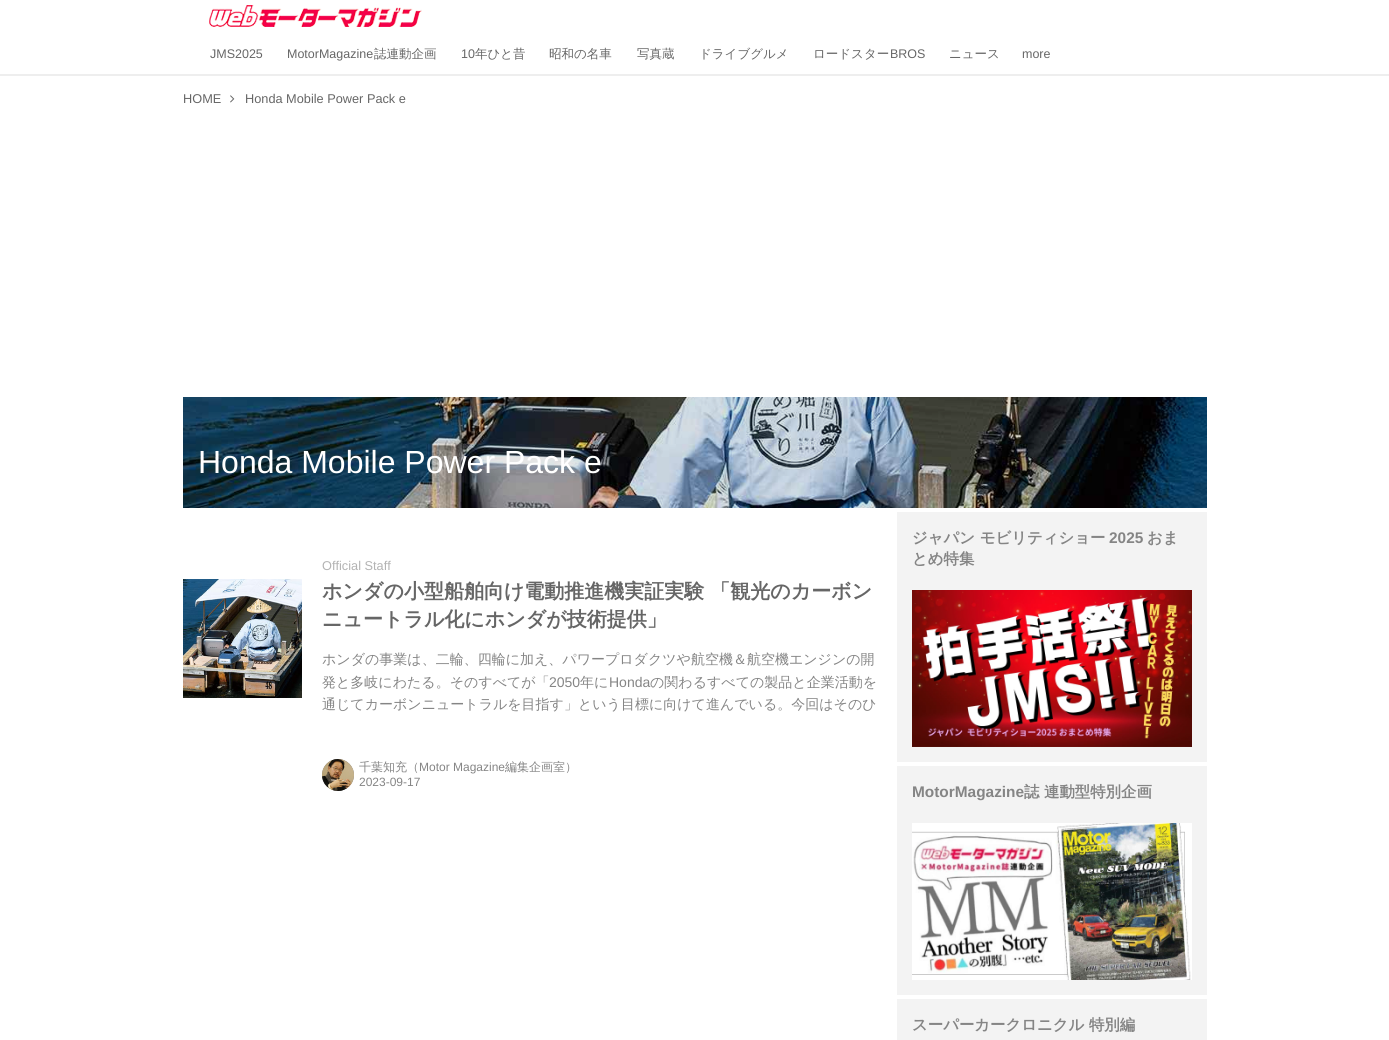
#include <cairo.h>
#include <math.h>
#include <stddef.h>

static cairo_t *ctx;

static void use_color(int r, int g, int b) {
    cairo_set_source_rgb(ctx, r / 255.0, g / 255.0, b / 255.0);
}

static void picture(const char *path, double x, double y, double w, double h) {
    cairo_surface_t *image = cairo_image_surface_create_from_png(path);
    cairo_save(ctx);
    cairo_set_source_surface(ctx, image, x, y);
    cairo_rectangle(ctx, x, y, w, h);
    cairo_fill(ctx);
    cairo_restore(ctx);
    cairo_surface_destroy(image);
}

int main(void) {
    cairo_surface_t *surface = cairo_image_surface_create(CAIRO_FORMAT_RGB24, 1389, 1040);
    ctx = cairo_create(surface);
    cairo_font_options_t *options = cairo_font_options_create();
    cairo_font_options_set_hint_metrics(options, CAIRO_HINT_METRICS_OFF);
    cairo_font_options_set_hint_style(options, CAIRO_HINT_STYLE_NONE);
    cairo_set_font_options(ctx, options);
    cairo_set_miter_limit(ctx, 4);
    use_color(255, 255, 255);
    cairo_paint(ctx);
    picture("img1.png", 209, 5, 213, 22);
    cairo_select_font_face(ctx, "Liberation Sans", CAIRO_FONT_SLANT_NORMAL, CAIRO_FONT_WEIGHT_NORMAL);
    cairo_set_font_size(ctx, 12.5);
    use_color(102, 102, 102);
    cairo_move_to(ctx, 210, 58);
    cairo_show_text(ctx, "JMS2025");
    cairo_move_to(ctx, 287, 58);
    cairo_show_text(ctx, "MotorMagazine");
    cairo_select_font_face(ctx, "WenQuanYi Zen Hei Medium", CAIRO_FONT_SLANT_NORMAL, CAIRO_FONT_WEIGHT_NORMAL);
    cairo_move_to(ctx, 374, 58);
    cairo_show_text(ctx, "誌連動企画");
    cairo_select_font_face(ctx, "Liberation Sans", CAIRO_FONT_SLANT_NORMAL, CAIRO_FONT_WEIGHT_NORMAL);
    cairo_move_to(ctx, 461, 58);
    cairo_show_text(ctx, "10");
    cairo_select_font_face(ctx, "WenQuanYi Zen Hei Medium", CAIRO_FONT_SLANT_NORMAL, CAIRO_FONT_WEIGHT_NORMAL);
    cairo_move_to(ctx, 475, 58);
    cairo_show_text(ctx, "年ひと昔");
    cairo_move_to(ctx, 549, 58);
    cairo_show_text(ctx, "昭和の名車");
    cairo_move_to(ctx, 637, 58);
    cairo_show_text(ctx, "写真蔵");
    cairo_move_to(ctx, 699, 58);
    cairo_show_text(ctx, "ドライブグルメ");
    cairo_move_to(ctx, 813, 58);
    cairo_show_text(ctx, "ロードスター");
    cairo_select_font_face(ctx, "Liberation Sans", CAIRO_FONT_SLANT_NORMAL, CAIRO_FONT_WEIGHT_NORMAL);
    cairo_move_to(ctx, 890, 58);
    cairo_show_text(ctx, "BROS");
    cairo_select_font_face(ctx, "WenQuanYi Zen Hei Medium", CAIRO_FONT_SLANT_NORMAL, CAIRO_FONT_WEIGHT_NORMAL);
    cairo_move_to(ctx, 949, 58);
    cairo_show_text(ctx, "ニュース");
    cairo_select_font_face(ctx, "Liberation Sans", CAIRO_FONT_SLANT_NORMAL, CAIRO_FONT_WEIGHT_NORMAL);
    cairo_move_to(ctx, 1022, 58);
    cairo_show_text(ctx, "more");
    use_color(238, 238, 238);
    cairo_rectangle(ctx, 0, 74, 1389, 2);
    cairo_fill(ctx);
    cairo_set_font_size(ctx, 12.75);
    use_color(102, 102, 102);
    cairo_move_to(ctx, 183, 103);
    cairo_show_text(ctx, "HOME");
    picture("img2.png", 230, 95, 5, 8);
    cairo_move_to(ctx, 245, 103);
    cairo_show_text(ctx, "Honda Mobile Power Pack e");
    picture("img3.png", 183, 397, 1024, 111);
    cairo_set_font_size(ctx, 32);
    use_color(255, 255, 255);
    cairo_move_to(ctx, 198, 473);
    cairo_show_text(ctx, "Honda Mobile Power Pack e");
    picture("img4.png", 183, 579, 119, 119);
    cairo_set_font_size(ctx, 12.75);
    use_color(179, 179, 179);
    cairo_move_to(ctx, 322, 570);
    cairo_show_text(ctx, "Official Staff");
    cairo_select_font_face(ctx, "WenQuanYi Zen Hei", CAIRO_FONT_SLANT_NORMAL, CAIRO_FONT_WEIGHT_BOLD);
    cairo_set_font_size(ctx, 20);
    use_color(102, 102, 102);
    cairo_move_to(ctx, 322, 598);
    cairo_show_text(ctx, "ホンダの小型船舶向け電動推進機実証実験 「観光のカーボン");
    cairo_move_to(ctx, 322, 626);
    cairo_show_text(ctx, "ニュートラル化にホンダが技術提供」");
    cairo_select_font_face(ctx, "WenQuanYi Zen Hei Medium", CAIRO_FONT_SLANT_NORMAL, CAIRO_FONT_WEIGHT_NORMAL);
    cairo_set_font_size(ctx, 14);
    use_color(133, 133, 133);
    cairo_move_to(ctx, 322, 664);
    cairo_show_text(ctx, "ホンダの事業は、二輪、四輪に加え、パワープロダクツや航空機＆航空機エンジンの開");
    cairo_move_to(ctx, 322, 687);
    cairo_show_text(ctx, "発と多岐にわたる。そのすべてが「");
    cairo_select_font_face(ctx, "Liberation Sans", CAIRO_FONT_SLANT_NORMAL, CAIRO_FONT_WEIGHT_NORMAL);
    cairo_move_to(ctx, 549, 687);
    cairo_show_text(ctx, "2050");
    cairo_select_font_face(ctx, "WenQuanYi Zen Hei Medium", CAIRO_FONT_SLANT_NORMAL, CAIRO_FONT_WEIGHT_NORMAL);
    cairo_move_to(ctx, 580, 687);
    cairo_show_text(ctx, "年に");
    cairo_select_font_face(ctx, "Liberation Sans", CAIRO_FONT_SLANT_NORMAL, CAIRO_FONT_WEIGHT_NORMAL);
    cairo_move_to(ctx, 609, 687);
    cairo_show_text(ctx, "Honda");
    cairo_select_font_face(ctx, "WenQuanYi Zen Hei Medium", CAIRO_FONT_SLANT_NORMAL, CAIRO_FONT_WEIGHT_NORMAL);
    cairo_move_to(ctx, 650, 687);
    cairo_show_text(ctx, "の関わるすべての製品と企業活動を");
    cairo_move_to(ctx, 322, 709);
    cairo_show_text(ctx, "通じてカーボンニュートラルを目指す」という目標に向けて進んでいる。今回はそのひ");
    use_color(136, 136, 136);
    cairo_new_path(ctx);
    cairo_arc(ctx, 338, 775, 16, 0, 2 * M_PI);
    cairo_fill(ctx);
    picture("img5.png", 322, 759, 32, 32);
    cairo_set_font_size(ctx, 12);
    use_color(133, 133, 133);
    cairo_move_to(ctx, 359, 771);
    cairo_show_text(ctx, "千葉知充（");
    cairo_select_font_face(ctx, "Liberation Sans", CAIRO_FONT_SLANT_NORMAL, CAIRO_FONT_WEIGHT_NORMAL);
    cairo_move_to(ctx, 419, 771);
    cairo_show_text(ctx, "Motor Magazine");
    cairo_select_font_face(ctx, "WenQuanYi Zen Hei Medium", CAIRO_FONT_SLANT_NORMAL, CAIRO_FONT_WEIGHT_NORMAL);
    cairo_move_to(ctx, 505, 771);
    cairo_show_text(ctx, "編集企画室）");
    cairo_select_font_face(ctx, "Liberation Sans", CAIRO_FONT_SLANT_NORMAL, CAIRO_FONT_WEIGHT_NORMAL);
    cairo_move_to(ctx, 359, 786);
    cairo_show_text(ctx, "2023-09-17");
    use_color(243, 243, 243);
    cairo_rectangle(ctx, 897, 512, 310, 250);
    cairo_fill(ctx);
    cairo_select_font_face(ctx, "WenQuanYi Zen Hei", CAIRO_FONT_SLANT_NORMAL, CAIRO_FONT_WEIGHT_BOLD);
    cairo_set_font_size(ctx, 15.4);
    use_color(133, 133, 133);
    cairo_move_to(ctx, 912, 543);
    cairo_show_text(ctx, "ジャパン モビリティショー");
    cairo_select_font_face(ctx, "Liberation Sans", CAIRO_FONT_SLANT_NORMAL, CAIRO_FONT_WEIGHT_BOLD);
    cairo_move_to(ctx, 1109, 543);
    cairo_show_text(ctx, "2025");
    cairo_select_font_face(ctx, "WenQuanYi Zen Hei", CAIRO_FONT_SLANT_NORMAL, CAIRO_FONT_WEIGHT_BOLD);
    cairo_move_to(ctx, 1147, 543);
    cairo_show_text(ctx, "おま");
    cairo_move_to(ctx, 912, 564);
    cairo_show_text(ctx, "とめ特集");
    picture("img6.png", 912, 590, 280, 157);
    use_color(243, 243, 243);
    cairo_rectangle(ctx, 897, 766, 310, 229);
    cairo_fill(ctx);
    cairo_select_font_face(ctx, "Liberation Sans", CAIRO_FONT_SLANT_NORMAL, CAIRO_FONT_WEIGHT_BOLD);
    use_color(133, 133, 133);
    cairo_move_to(ctx, 912, 797);
    cairo_show_text(ctx, "MotorMagazine");
    cairo_select_font_face(ctx, "WenQuanYi Zen Hei", CAIRO_FONT_SLANT_NORMAL, CAIRO_FONT_WEIGHT_BOLD);
    cairo_move_to(ctx, 1024, 797);
    cairo_show_text(ctx, "誌 連動型特別企画");
    picture("img7.png", 912, 823, 280, 157);
    use_color(243, 243, 243);
    cairo_rectangle(ctx, 897, 999, 310, 41);
    cairo_fill(ctx);
    use_color(133, 133, 133);
    cairo_move_to(ctx, 912, 1030);
    cairo_show_text(ctx, "スーパーカークロニクル 特別編");
    cairo_surface_write_to_png(surface, "result.png");
    cairo_font_options_destroy(options);
    cairo_destroy(ctx);
    cairo_surface_destroy(surface);
    return 0;
}
